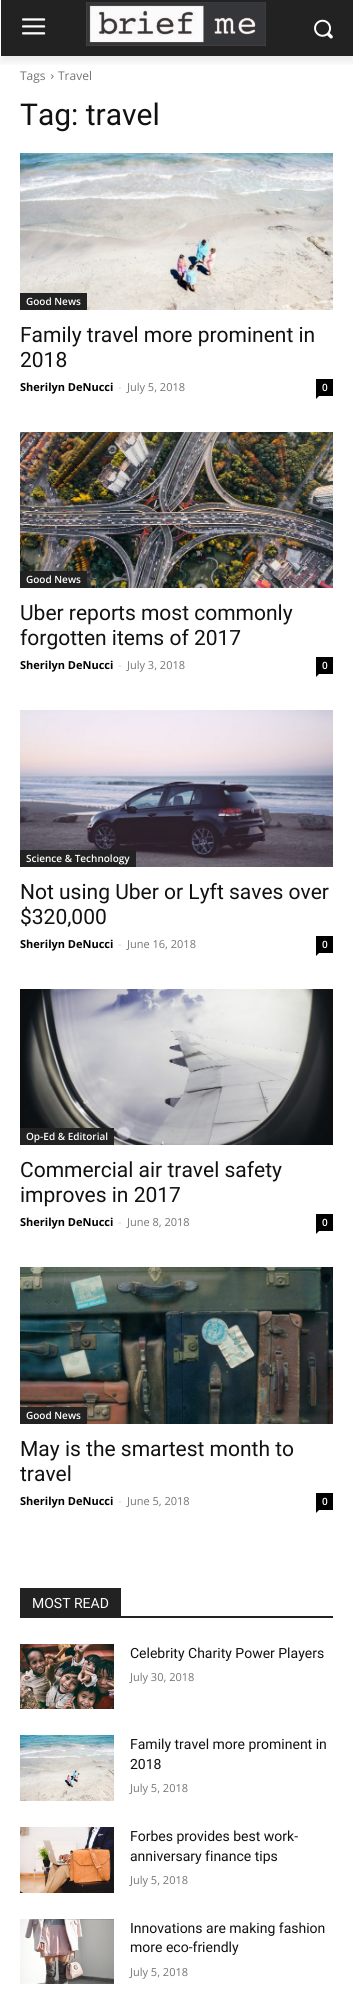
#include <cairo.h>
#include <math.h>
#include <stddef.h>

static cairo_t *ctx;

static void use_color(int r, int g, int b) {
    cairo_set_source_rgb(ctx, r / 255.0, g / 255.0, b / 255.0);
}

static void round_rect(double x, double y, double w, double h, double r) {
    cairo_new_sub_path(ctx);
    cairo_arc(ctx, x + w - r, y + h - r, r, 0, M_PI / 2);
    cairo_arc(ctx, x + r, y + h - r, r, M_PI / 2, M_PI);
    cairo_arc(ctx, x + r, y + r, r, M_PI, 1.5 * M_PI);
    cairo_arc(ctx, x + w - r, y + r, r, 1.5 * M_PI, 2 * M_PI);
    cairo_close_path(ctx);
}

static void shadow(double x, double y, double w, double h, double r, double blur, double alpha) {
    cairo_push_group_with_content(ctx, CAIRO_CONTENT_ALPHA);
    cairo_set_operator(ctx, CAIRO_OPERATOR_SOURCE);
    for (int i = 15; i >= -15 && fmin(w, h) + blur * i / 3 > 0; i -= 2) {
        double e = blur * i / 6;
        cairo_set_source_rgba(ctx, 0, 0, 0, alpha * erfc((i - 1) / 8.5) / 2);
        round_rect(x - e, y - e, w + 2 * e, h + 2 * e, fmax(0, fmin(r + e + blur * .6, fmin(w, h) / 2 + e)));
        cairo_fill(ctx);
    }
    cairo_pattern_t *soft = cairo_pop_group(ctx);
    cairo_mask(ctx, soft);
    cairo_pattern_destroy(soft);
}

static void picture(const char *path, double x, double y, double w, double h) {
    cairo_surface_t *image = cairo_image_surface_create_from_png(path);
    cairo_save(ctx);
    cairo_set_source_surface(ctx, image, x, y);
    cairo_rectangle(ctx, x, y, w, h);
    cairo_fill(ctx);
    cairo_restore(ctx);
    cairo_surface_destroy(image);
}

int main(void) {
    cairo_surface_t *surface = cairo_image_surface_create(CAIRO_FORMAT_RGB24, 353, 2010);
    ctx = cairo_create(surface);
    cairo_font_options_t *options = cairo_font_options_create();
    cairo_font_options_set_hint_metrics(options, CAIRO_HINT_METRICS_OFF);
    cairo_font_options_set_hint_style(options, CAIRO_HINT_STYLE_NONE);
    cairo_set_font_options(ctx, options);
    cairo_set_miter_limit(ctx, 4);
    use_color(255, 255, 255);
    cairo_paint(ctx);
    use_color(34, 34, 34);
    cairo_rectangle(ctx, 1, 0, 352, 56);
    cairo_fill(ctx);
    picture("img1.png", 22, 18, 24, 17);
    picture("img2.png", 86, 2, 180, 44);
    picture("img3.png", 314, 19, 19, 20);
    picture("img4.png", 51, 74, 3, 5);
    cairo_save(ctx);
    cairo_rectangle(ctx, 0, 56, 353, 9);
    cairo_clip(ctx);
    use_color(0, 0, 0);
    shadow(1, 6, 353, 56, 0, 4, 0.08);
    cairo_restore(ctx);
    cairo_select_font_face(ctx, "Open Sans", CAIRO_FONT_SLANT_NORMAL, CAIRO_FONT_WEIGHT_NORMAL);
    cairo_set_font_size(ctx, 12);
    use_color(116, 116, 116);
    cairo_move_to(ctx, 20, 80);
    cairo_show_text(ctx, "Tags");
    cairo_move_to(ctx, 58, 80);
    cairo_show_text(ctx, "Travel");
    cairo_select_font_face(ctx, "Roboto", CAIRO_FONT_SLANT_NORMAL, CAIRO_FONT_WEIGHT_NORMAL);
    cairo_set_font_size(ctx, 30);
    use_color(17, 17, 17);
    cairo_move_to(ctx, 20, 125);
    cairo_show_text(ctx, "Tag: travel");
    picture("img5.png", 20, 153, 313, 157);
    use_color(34, 34, 34);
    cairo_rectangle(ctx, 20, 293, 67, 17);
    cairo_fill(ctx);
    cairo_select_font_face(ctx, "Open Sans SemiBold", CAIRO_FONT_SLANT_NORMAL, CAIRO_FONT_WEIGHT_NORMAL);
    cairo_set_font_size(ctx, 10);
    use_color(255, 255, 255);
    cairo_move_to(ctx, 26, 305);
    cairo_show_text(ctx, "Good News");
    cairo_select_font_face(ctx, "Roboto", CAIRO_FONT_SLANT_NORMAL, CAIRO_FONT_WEIGHT_NORMAL);
    cairo_set_font_size(ctx, 21);
    use_color(17, 17, 17);
    cairo_move_to(ctx, 20, 342);
    cairo_show_text(ctx, "Family travel more prominent in");
    cairo_move_to(ctx, 20, 367);
    cairo_show_text(ctx, "2018");
    cairo_select_font_face(ctx, "Open Sans", CAIRO_FONT_SLANT_NORMAL, CAIRO_FONT_WEIGHT_BOLD);
    cairo_set_font_size(ctx, 11);
    use_color(0, 0, 0);
    cairo_move_to(ctx, 20, 391);
    cairo_show_text(ctx, "Sherilyn DeNucci");
    cairo_select_font_face(ctx, "Open Sans", CAIRO_FONT_SLANT_NORMAL, CAIRO_FONT_WEIGHT_NORMAL);
    use_color(204, 204, 204);
    cairo_move_to(ctx, 118, 391);
    cairo_show_text(ctx, "-");
    use_color(116, 116, 116);
    cairo_move_to(ctx, 127, 391);
    cairo_show_text(ctx, "July 5, 2018");
    use_color(0, 0, 0);
    cairo_rectangle(ctx, 316, 379, 17, 17);
    cairo_fill(ctx);
    cairo_select_font_face(ctx, "Open Sans SemiBold", CAIRO_FONT_SLANT_NORMAL, CAIRO_FONT_WEIGHT_NORMAL);
    cairo_set_font_size(ctx, 10);
    use_color(255, 255, 255);
    cairo_move_to(ctx, 322, 391);
    cairo_show_text(ctx, "0");
    use_color(0, 0, 0);
    cairo_new_path(ctx);
    cairo_move_to(ctx, 316, 396);
    cairo_line_to(ctx, 319, 396);
    cairo_line_to(ctx, 316, 399);
    cairo_close_path(ctx);
    cairo_fill(ctx);
    picture("img6.png", 20, 432, 313, 156);
    use_color(34, 34, 34);
    cairo_rectangle(ctx, 20, 571, 67, 17);
    cairo_fill(ctx);
    use_color(255, 255, 255);
    cairo_move_to(ctx, 26, 583);
    cairo_show_text(ctx, "Good News");
    cairo_select_font_face(ctx, "Roboto", CAIRO_FONT_SLANT_NORMAL, CAIRO_FONT_WEIGHT_NORMAL);
    cairo_set_font_size(ctx, 21);
    use_color(17, 17, 17);
    cairo_move_to(ctx, 20, 620);
    cairo_show_text(ctx, "Uber reports most commonly");
    cairo_move_to(ctx, 20, 645);
    cairo_show_text(ctx, "forgotten items of 2017");
    cairo_select_font_face(ctx, "Open Sans", CAIRO_FONT_SLANT_NORMAL, CAIRO_FONT_WEIGHT_BOLD);
    cairo_set_font_size(ctx, 11);
    use_color(0, 0, 0);
    cairo_move_to(ctx, 20, 669);
    cairo_show_text(ctx, "Sherilyn DeNucci");
    cairo_select_font_face(ctx, "Open Sans", CAIRO_FONT_SLANT_NORMAL, CAIRO_FONT_WEIGHT_NORMAL);
    use_color(204, 204, 204);
    cairo_move_to(ctx, 118, 669);
    cairo_show_text(ctx, "-");
    use_color(116, 116, 116);
    cairo_move_to(ctx, 127, 669);
    cairo_show_text(ctx, "July 3, 2018");
    use_color(0, 0, 0);
    cairo_rectangle(ctx, 316, 657, 17, 17);
    cairo_fill(ctx);
    cairo_select_font_face(ctx, "Open Sans SemiBold", CAIRO_FONT_SLANT_NORMAL, CAIRO_FONT_WEIGHT_NORMAL);
    cairo_set_font_size(ctx, 10);
    use_color(255, 255, 255);
    cairo_move_to(ctx, 322, 669);
    cairo_show_text(ctx, "0");
    use_color(0, 0, 0);
    cairo_new_path(ctx);
    cairo_move_to(ctx, 316, 674);
    cairo_line_to(ctx, 319, 674);
    cairo_line_to(ctx, 316, 677);
    cairo_close_path(ctx);
    cairo_fill(ctx);
    picture("img7.png", 20, 710, 313, 157);
    use_color(34, 34, 34);
    cairo_rectangle(ctx, 20, 850, 116, 17);
    cairo_fill(ctx);
    use_color(255, 255, 255);
    cairo_move_to(ctx, 26, 862);
    cairo_show_text(ctx, "Science & Technology");
    cairo_select_font_face(ctx, "Roboto", CAIRO_FONT_SLANT_NORMAL, CAIRO_FONT_WEIGHT_NORMAL);
    cairo_set_font_size(ctx, 21);
    use_color(17, 17, 17);
    cairo_move_to(ctx, 20, 899);
    cairo_show_text(ctx, "Not using Uber or Lyft saves over");
    cairo_move_to(ctx, 20, 924);
    cairo_show_text(ctx, "$320,000");
    cairo_select_font_face(ctx, "Open Sans", CAIRO_FONT_SLANT_NORMAL, CAIRO_FONT_WEIGHT_BOLD);
    cairo_set_font_size(ctx, 11);
    use_color(0, 0, 0);
    cairo_move_to(ctx, 20, 948);
    cairo_show_text(ctx, "Sherilyn DeNucci");
    cairo_select_font_face(ctx, "Open Sans", CAIRO_FONT_SLANT_NORMAL, CAIRO_FONT_WEIGHT_NORMAL);
    use_color(204, 204, 204);
    cairo_move_to(ctx, 118, 948);
    cairo_show_text(ctx, "-");
    use_color(116, 116, 116);
    cairo_move_to(ctx, 127, 948);
    cairo_show_text(ctx, "June 16, 2018");
    use_color(0, 0, 0);
    cairo_rectangle(ctx, 316, 936, 17, 17);
    cairo_fill(ctx);
    cairo_select_font_face(ctx, "Open Sans SemiBold", CAIRO_FONT_SLANT_NORMAL, CAIRO_FONT_WEIGHT_NORMAL);
    cairo_set_font_size(ctx, 10);
    use_color(255, 255, 255);
    cairo_move_to(ctx, 322, 948);
    cairo_show_text(ctx, "0");
    use_color(0, 0, 0);
    cairo_new_path(ctx);
    cairo_move_to(ctx, 316, 953);
    cairo_line_to(ctx, 319, 953);
    cairo_line_to(ctx, 316, 956);
    cairo_close_path(ctx);
    cairo_fill(ctx);
    picture("img8.png", 20, 989, 313, 156);
    use_color(34, 34, 34);
    cairo_rectangle(ctx, 20, 1128, 94, 17);
    cairo_fill(ctx);
    use_color(255, 255, 255);
    cairo_move_to(ctx, 26, 1140);
    cairo_show_text(ctx, "Op-Ed & Editorial");
    cairo_select_font_face(ctx, "Roboto", CAIRO_FONT_SLANT_NORMAL, CAIRO_FONT_WEIGHT_NORMAL);
    cairo_set_font_size(ctx, 21);
    use_color(17, 17, 17);
    cairo_move_to(ctx, 20, 1177);
    cairo_show_text(ctx, "Commercial air travel safety");
    cairo_move_to(ctx, 20, 1202);
    cairo_show_text(ctx, "improves in 2017");
    cairo_select_font_face(ctx, "Open Sans", CAIRO_FONT_SLANT_NORMAL, CAIRO_FONT_WEIGHT_BOLD);
    cairo_set_font_size(ctx, 11);
    use_color(0, 0, 0);
    cairo_move_to(ctx, 20, 1226);
    cairo_show_text(ctx, "Sherilyn DeNucci");
    cairo_select_font_face(ctx, "Open Sans", CAIRO_FONT_SLANT_NORMAL, CAIRO_FONT_WEIGHT_NORMAL);
    use_color(204, 204, 204);
    cairo_move_to(ctx, 118, 1226);
    cairo_show_text(ctx, "-");
    use_color(116, 116, 116);
    cairo_move_to(ctx, 127, 1226);
    cairo_show_text(ctx, "June 8, 2018");
    use_color(0, 0, 0);
    cairo_rectangle(ctx, 316, 1214, 17, 17);
    cairo_fill(ctx);
    cairo_select_font_face(ctx, "Open Sans SemiBold", CAIRO_FONT_SLANT_NORMAL, CAIRO_FONT_WEIGHT_NORMAL);
    cairo_set_font_size(ctx, 10);
    use_color(255, 255, 255);
    cairo_move_to(ctx, 322, 1226);
    cairo_show_text(ctx, "0");
    use_color(0, 0, 0);
    cairo_new_path(ctx);
    cairo_move_to(ctx, 316, 1231);
    cairo_line_to(ctx, 319, 1231);
    cairo_line_to(ctx, 316, 1234);
    cairo_close_path(ctx);
    cairo_fill(ctx);
    picture("img9.png", 20, 1267, 313, 157);
    use_color(34, 34, 34);
    cairo_rectangle(ctx, 20, 1407, 67, 17);
    cairo_fill(ctx);
    use_color(255, 255, 255);
    cairo_move_to(ctx, 26, 1419);
    cairo_show_text(ctx, "Good News");
    cairo_select_font_face(ctx, "Roboto", CAIRO_FONT_SLANT_NORMAL, CAIRO_FONT_WEIGHT_NORMAL);
    cairo_set_font_size(ctx, 21);
    use_color(17, 17, 17);
    cairo_move_to(ctx, 20, 1456);
    cairo_show_text(ctx, "May is the smartest month to");
    cairo_move_to(ctx, 20, 1481);
    cairo_show_text(ctx, "travel");
    cairo_select_font_face(ctx, "Open Sans", CAIRO_FONT_SLANT_NORMAL, CAIRO_FONT_WEIGHT_BOLD);
    cairo_set_font_size(ctx, 11);
    use_color(0, 0, 0);
    cairo_move_to(ctx, 20, 1505);
    cairo_show_text(ctx, "Sherilyn DeNucci");
    cairo_select_font_face(ctx, "Open Sans", CAIRO_FONT_SLANT_NORMAL, CAIRO_FONT_WEIGHT_NORMAL);
    use_color(204, 204, 204);
    cairo_move_to(ctx, 118, 1505);
    cairo_show_text(ctx, "-");
    use_color(116, 116, 116);
    cairo_move_to(ctx, 127, 1505);
    cairo_show_text(ctx, "June 5, 2018");
    use_color(0, 0, 0);
    cairo_rectangle(ctx, 316, 1493, 17, 17);
    cairo_fill(ctx);
    cairo_select_font_face(ctx, "Open Sans SemiBold", CAIRO_FONT_SLANT_NORMAL, CAIRO_FONT_WEIGHT_NORMAL);
    cairo_set_font_size(ctx, 10);
    use_color(255, 255, 255);
    cairo_move_to(ctx, 322, 1505);
    cairo_show_text(ctx, "0");
    use_color(0, 0, 0);
    cairo_new_path(ctx);
    cairo_move_to(ctx, 316, 1510);
    cairo_line_to(ctx, 319, 1510);
    cairo_line_to(ctx, 316, 1513);
    cairo_close_path(ctx);
    cairo_fill(ctx);
    use_color(34, 34, 34);
    cairo_rectangle(ctx, 20, 1616, 313, 2);
    cairo_fill(ctx);
    cairo_rectangle(ctx, 20, 1588, 101, 28);
    cairo_fill(ctx);
    cairo_select_font_face(ctx, "Roboto", CAIRO_FONT_SLANT_NORMAL, CAIRO_FONT_WEIGHT_NORMAL);
    cairo_set_font_size(ctx, 14);
    use_color(255, 255, 255);
    cairo_move_to(ctx, 32, 1608);
    cairo_show_text(ctx, "MOST READ");
    picture("img10.png", 20, 1644, 94, 65);
    use_color(17, 17, 17);
    cairo_move_to(ctx, 130, 1658);
    cairo_show_text(ctx, "Celebrity Charity Power Players");
    cairo_select_font_face(ctx, "Open Sans", CAIRO_FONT_SLANT_NORMAL, CAIRO_FONT_WEIGHT_NORMAL);
    cairo_set_font_size(ctx, 11);
    use_color(116, 116, 116);
    cairo_move_to(ctx, 130, 1681);
    cairo_show_text(ctx, "July 30, 2018");
    picture("img11.png", 20, 1735, 94, 66);
    cairo_select_font_face(ctx, "Roboto", CAIRO_FONT_SLANT_NORMAL, CAIRO_FONT_WEIGHT_NORMAL);
    cairo_set_font_size(ctx, 14);
    use_color(17, 17, 17);
    cairo_move_to(ctx, 130, 1749);
    cairo_show_text(ctx, "Family travel more prominent in");
    cairo_move_to(ctx, 130, 1769);
    cairo_show_text(ctx, "2018");
    cairo_select_font_face(ctx, "Open Sans", CAIRO_FONT_SLANT_NORMAL, CAIRO_FONT_WEIGHT_NORMAL);
    cairo_set_font_size(ctx, 11);
    use_color(116, 116, 116);
    cairo_move_to(ctx, 130, 1792);
    cairo_show_text(ctx, "July 5, 2018");
    picture("img12.png", 20, 1827, 94, 66);
    cairo_select_font_face(ctx, "Roboto", CAIRO_FONT_SLANT_NORMAL, CAIRO_FONT_WEIGHT_NORMAL);
    cairo_set_font_size(ctx, 14);
    use_color(17, 17, 17);
    cairo_move_to(ctx, 130, 1841);
    cairo_show_text(ctx, "Forbes provides best work-");
    cairo_move_to(ctx, 130, 1861);
    cairo_show_text(ctx, "anniversary finance tips");
    cairo_select_font_face(ctx, "Open Sans", CAIRO_FONT_SLANT_NORMAL, CAIRO_FONT_WEIGHT_NORMAL);
    cairo_set_font_size(ctx, 11);
    use_color(116, 116, 116);
    cairo_move_to(ctx, 130, 1884);
    cairo_show_text(ctx, "July 5, 2018");
    picture("img13.png", 20, 1919, 94, 65);
    cairo_select_font_face(ctx, "Roboto", CAIRO_FONT_SLANT_NORMAL, CAIRO_FONT_WEIGHT_NORMAL);
    cairo_set_font_size(ctx, 14);
    use_color(17, 17, 17);
    cairo_move_to(ctx, 130, 1933);
    cairo_show_text(ctx, "Innovations are making fashion");
    cairo_move_to(ctx, 130, 1952);
    cairo_show_text(ctx, "more eco-friendly");
    cairo_select_font_face(ctx, "Open Sans", CAIRO_FONT_SLANT_NORMAL, CAIRO_FONT_WEIGHT_NORMAL);
    cairo_set_font_size(ctx, 11);
    use_color(116, 116, 116);
    cairo_move_to(ctx, 130, 1976);
    cairo_show_text(ctx, "July 5, 2018");
    cairo_surface_write_to_png(surface, "result.png");
    cairo_font_options_destroy(options);
    cairo_destroy(ctx);
    cairo_surface_destroy(surface);
    return 0;
}
